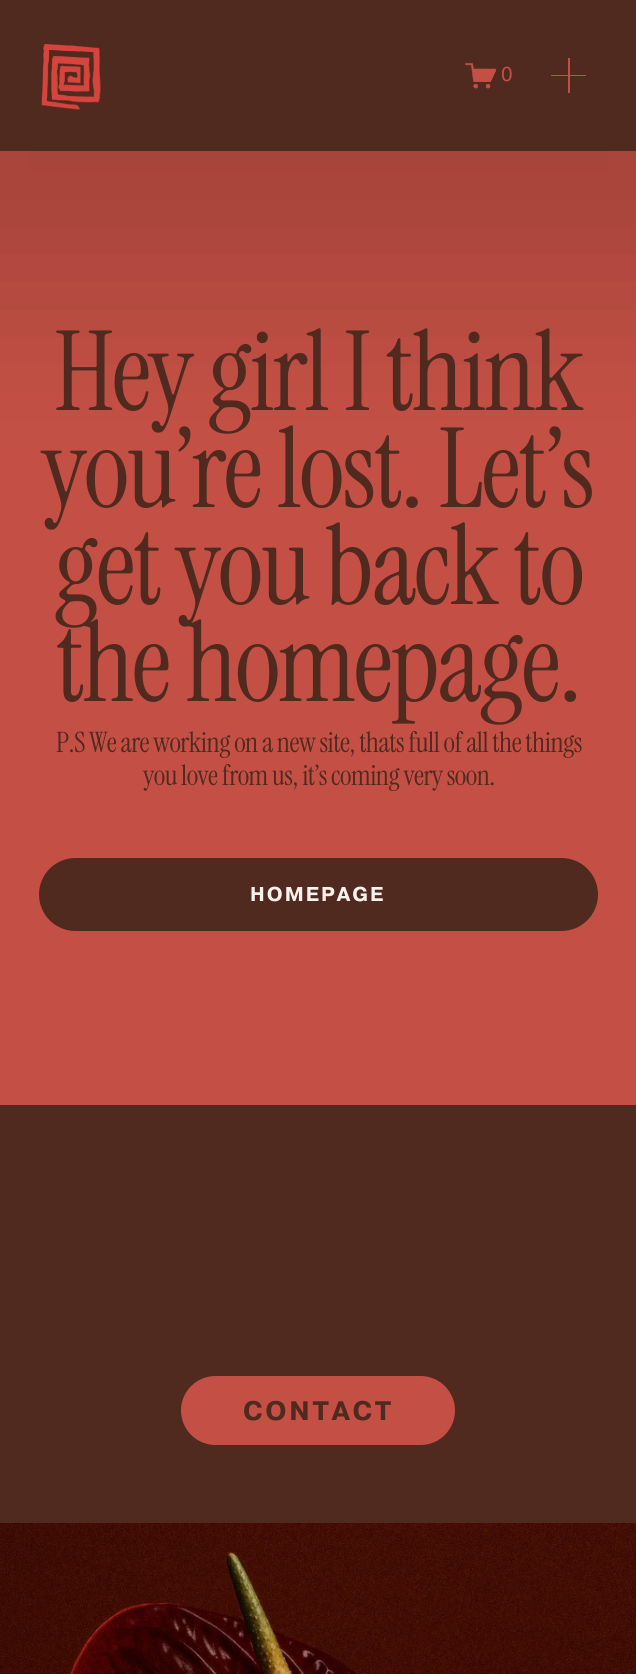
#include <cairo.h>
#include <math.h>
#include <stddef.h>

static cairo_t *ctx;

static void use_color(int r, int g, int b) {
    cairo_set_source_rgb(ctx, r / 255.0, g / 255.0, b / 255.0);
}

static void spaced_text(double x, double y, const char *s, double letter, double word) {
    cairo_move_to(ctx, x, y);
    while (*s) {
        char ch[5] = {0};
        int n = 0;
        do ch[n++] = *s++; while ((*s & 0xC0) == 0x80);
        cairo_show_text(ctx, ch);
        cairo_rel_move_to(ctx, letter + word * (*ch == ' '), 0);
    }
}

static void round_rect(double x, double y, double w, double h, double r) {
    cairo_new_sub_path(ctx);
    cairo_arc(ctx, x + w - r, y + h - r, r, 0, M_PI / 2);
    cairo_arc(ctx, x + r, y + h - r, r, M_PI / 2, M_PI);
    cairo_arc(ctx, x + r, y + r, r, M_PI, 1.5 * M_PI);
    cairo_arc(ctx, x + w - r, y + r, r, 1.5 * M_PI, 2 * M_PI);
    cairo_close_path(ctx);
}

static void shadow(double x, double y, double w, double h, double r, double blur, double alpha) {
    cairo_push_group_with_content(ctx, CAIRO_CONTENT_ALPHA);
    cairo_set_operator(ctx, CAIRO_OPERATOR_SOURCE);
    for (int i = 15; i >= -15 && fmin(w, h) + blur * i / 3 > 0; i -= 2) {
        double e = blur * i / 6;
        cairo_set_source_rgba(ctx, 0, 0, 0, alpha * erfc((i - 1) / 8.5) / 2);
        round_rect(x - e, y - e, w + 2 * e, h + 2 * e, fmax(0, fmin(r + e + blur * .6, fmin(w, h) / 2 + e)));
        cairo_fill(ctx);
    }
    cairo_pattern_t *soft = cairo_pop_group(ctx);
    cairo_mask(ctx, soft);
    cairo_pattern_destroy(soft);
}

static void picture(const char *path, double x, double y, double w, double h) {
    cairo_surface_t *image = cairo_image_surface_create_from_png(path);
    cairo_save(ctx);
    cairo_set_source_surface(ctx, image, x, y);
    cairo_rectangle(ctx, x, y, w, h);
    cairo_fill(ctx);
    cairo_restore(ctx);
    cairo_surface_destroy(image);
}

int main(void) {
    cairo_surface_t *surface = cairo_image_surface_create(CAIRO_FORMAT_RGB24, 636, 1674);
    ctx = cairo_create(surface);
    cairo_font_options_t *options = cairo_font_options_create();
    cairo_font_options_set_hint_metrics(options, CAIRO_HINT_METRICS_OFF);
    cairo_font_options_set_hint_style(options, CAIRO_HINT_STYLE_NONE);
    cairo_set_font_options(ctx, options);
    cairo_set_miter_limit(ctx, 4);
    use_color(196, 80, 69);
    cairo_paint(ctx);
    use_color(0, 0, 0);
    shadow(-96, -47, 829, 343, 0, 83, 0.15);
    use_color(80, 41, 31);
    cairo_rectangle(ctx, 0, 0, 636, 151);
    cairo_fill(ctx);
    picture("img1.png", 41, 44, 60, 67);
    picture("img2.png", 465, 63, 31, 26);
    cairo_select_font_face(ctx, "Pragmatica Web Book", CAIRO_FONT_SLANT_NORMAL, CAIRO_FONT_WEIGHT_NORMAL);
    cairo_set_font_size(ctx, 20);
    use_color(196, 80, 69);
    cairo_move_to(ctx, 501, 81);
    cairo_show_text(ctx, "0");
    cairo_rectangle(ctx, 551, 75, 35, 1);
    cairo_fill(ctx);
    cairo_rectangle(ctx, 568, 58, 2, 35);
    cairo_fill(ctx);
    cairo_select_font_face(ctx, "Instrument Serif", CAIRO_FONT_SLANT_NORMAL, CAIRO_FONT_WEIGHT_NORMAL);
    cairo_set_font_size(ctx, 110.5);
    use_color(80, 41, 31);
    spaced_text(54, 410, "Hey girl I think", -2.25, 0);
    spaced_text(42, 507, "you’re lost. Let’s", -2.25, 0);
    spaced_text(54, 604, "get you back to", -2.25, 0);
    spaced_text(56, 701, "the homepage.", -2.25, 0);
    cairo_set_font_size(ctx, 28.1);
    spaced_text(56, 752, "P.S We are working on a new site, thats full of all the things", -0.55, 0);
    spaced_text(143, 785, "you love from us, it’s coming very soon.", -0.55, 0);
    round_rect(39, 858, 559, 73, 36.5);
    cairo_fill(ctx);
    cairo_select_font_face(ctx, "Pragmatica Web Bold", CAIRO_FONT_SLANT_NORMAL, CAIRO_FONT_WEIGHT_BOLD);
    cairo_set_font_size(ctx, 20);
    use_color(250, 241, 234);
    spaced_text(250, 901, "HOMEPAGE", 2, 0);
    use_color(80, 41, 31);
    cairo_rectangle(ctx, 0, 1105, 636, 418);
    cairo_fill(ctx);
    use_color(196, 80, 69);
    round_rect(181, 1376, 274, 69, 34.5);
    cairo_fill(ctx);
    cairo_set_font_size(ctx, 26.75);
    use_color(80, 41, 31);
    spaced_text(243, 1420, "CONTACT", 2.75, 0);
    picture("img3.png", 0, 1523, 636, 151);
    cairo_surface_write_to_png(surface, "result.png");
    cairo_font_options_destroy(options);
    cairo_destroy(ctx);
    cairo_surface_destroy(surface);
    return 0;
}
